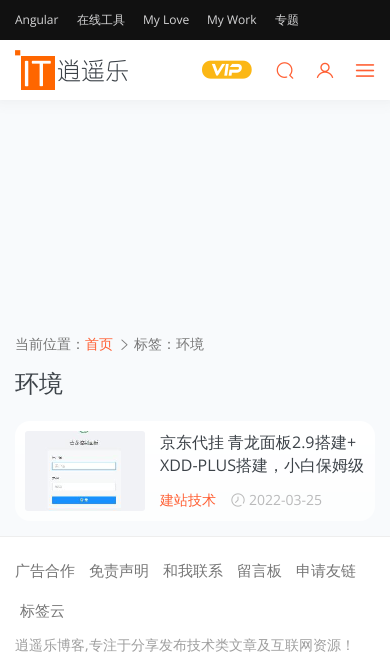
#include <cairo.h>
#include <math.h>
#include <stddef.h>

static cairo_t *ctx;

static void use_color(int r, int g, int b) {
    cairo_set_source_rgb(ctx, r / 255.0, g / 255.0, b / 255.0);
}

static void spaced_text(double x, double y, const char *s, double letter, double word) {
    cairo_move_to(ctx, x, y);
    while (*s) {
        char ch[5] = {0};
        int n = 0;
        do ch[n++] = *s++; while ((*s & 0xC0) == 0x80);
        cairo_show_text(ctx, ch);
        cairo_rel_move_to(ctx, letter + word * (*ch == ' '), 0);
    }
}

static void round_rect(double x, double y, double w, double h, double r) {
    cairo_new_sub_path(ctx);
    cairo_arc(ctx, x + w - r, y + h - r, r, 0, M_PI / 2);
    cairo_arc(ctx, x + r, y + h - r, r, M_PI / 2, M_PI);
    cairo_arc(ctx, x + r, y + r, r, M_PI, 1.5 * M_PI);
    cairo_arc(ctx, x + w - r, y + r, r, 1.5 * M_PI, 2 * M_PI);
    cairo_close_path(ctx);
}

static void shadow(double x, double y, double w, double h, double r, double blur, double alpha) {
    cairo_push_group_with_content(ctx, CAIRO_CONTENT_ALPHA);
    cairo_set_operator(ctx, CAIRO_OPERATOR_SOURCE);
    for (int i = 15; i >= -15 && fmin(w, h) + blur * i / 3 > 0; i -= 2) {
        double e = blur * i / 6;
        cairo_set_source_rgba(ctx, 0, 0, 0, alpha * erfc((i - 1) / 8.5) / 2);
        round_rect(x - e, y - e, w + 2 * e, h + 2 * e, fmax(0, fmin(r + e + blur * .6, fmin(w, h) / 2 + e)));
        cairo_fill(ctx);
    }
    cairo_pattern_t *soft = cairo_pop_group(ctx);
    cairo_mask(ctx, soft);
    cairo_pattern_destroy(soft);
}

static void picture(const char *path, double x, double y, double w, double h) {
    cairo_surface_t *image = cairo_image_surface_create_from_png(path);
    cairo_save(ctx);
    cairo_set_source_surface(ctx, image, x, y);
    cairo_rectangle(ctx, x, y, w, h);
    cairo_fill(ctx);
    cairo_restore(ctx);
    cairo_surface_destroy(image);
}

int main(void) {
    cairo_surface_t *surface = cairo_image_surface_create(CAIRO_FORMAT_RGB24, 390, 669);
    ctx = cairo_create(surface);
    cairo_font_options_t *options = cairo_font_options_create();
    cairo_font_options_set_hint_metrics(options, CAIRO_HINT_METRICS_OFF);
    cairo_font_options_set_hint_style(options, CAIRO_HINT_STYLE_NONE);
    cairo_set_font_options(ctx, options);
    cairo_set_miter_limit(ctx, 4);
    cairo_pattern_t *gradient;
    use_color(248, 250, 252);
    cairo_paint(ctx);
    use_color(17, 17, 17);
    cairo_rectangle(ctx, 0, 0, 390, 40);
    cairo_fill(ctx);
    use_color(0, 0, 0);
    shadow(0, 40, 390, 60, 0, 9, 0.06);
    use_color(255, 255, 255);
    cairo_rectangle(ctx, 0, 40, 390, 60);
    cairo_fill(ctx);
    picture("img1.png", 15, 50, 113, 40);
    picture("img2.png", 202, 60, 50, 19);
    picture("img3.png", 276, 62, 18, 17);
    picture("img4.png", 316, 62, 18, 16);
    picture("img5.png", 355, 64, 20, 13);
    cairo_select_font_face(ctx, "Open Sans", CAIRO_FONT_SLANT_NORMAL, CAIRO_FONT_WEIGHT_NORMAL);
    cairo_set_font_size(ctx, 12);
    use_color(212, 212, 213);
    cairo_move_to(ctx, 15, 24);
    cairo_show_text(ctx, "Angular");
    cairo_select_font_face(ctx, "WenQuanYi Zen Hei Medium", CAIRO_FONT_SLANT_NORMAL, CAIRO_FONT_WEIGHT_NORMAL);
    cairo_move_to(ctx, 77, 24);
    cairo_show_text(ctx, "在线工具");
    cairo_select_font_face(ctx, "Open Sans", CAIRO_FONT_SLANT_NORMAL, CAIRO_FONT_WEIGHT_NORMAL);
    cairo_move_to(ctx, 143, 24);
    cairo_show_text(ctx, "My Love");
    cairo_move_to(ctx, 207, 24);
    cairo_show_text(ctx, "My Work");
    cairo_select_font_face(ctx, "WenQuanYi Zen Hei Medium", CAIRO_FONT_SLANT_NORMAL, CAIRO_FONT_WEIGHT_NORMAL);
    cairo_move_to(ctx, 275, 24);
    cairo_show_text(ctx, "专题");
    cairo_set_font_size(ctx, 14);
    use_color(117, 117, 117);
    cairo_move_to(ctx, 15, 349);
    cairo_show_text(ctx, "当前位置：");
    use_color(255, 95, 51);
    cairo_move_to(ctx, 85, 349);
    cairo_show_text(ctx, "首页");
    picture("img6.png", 121, 339, 7, 11);
    use_color(117, 117, 117);
    cairo_move_to(ctx, 134, 349);
    cairo_show_text(ctx, "标签：环境");
    cairo_set_font_size(ctx, 24);
    use_color(60, 66, 72);
    cairo_move_to(ctx, 15, 392);
    cairo_show_text(ctx, "环境");
    gradient = cairo_pattern_create_linear(195, 421, 195, 521);
    cairo_pattern_add_color_stop_rgba(gradient, 0, 1, 1, 1, 1);
    cairo_pattern_add_color_stop_rgba(gradient, 1, 1, 1, 1, 0.7);
    cairo_set_source(ctx, gradient);
    cairo_pattern_destroy(gradient);
    round_rect(15, 421, 360, 100, 15);
    cairo_fill(ctx);
    picture("img7.png", 25, 431, 120, 80);
    cairo_set_font_size(ctx, 16);
    use_color(60, 66, 72);
    spaced_text(160, 448, "京东代挂 青龙面板", 0, -1);
    cairo_select_font_face(ctx, "Open Sans", CAIRO_FONT_SLANT_NORMAL, CAIRO_FONT_WEIGHT_NORMAL);
    cairo_move_to(ctx, 292, 448);
    cairo_show_text(ctx, "2.9");
    cairo_select_font_face(ctx, "WenQuanYi Zen Hei Medium", CAIRO_FONT_SLANT_NORMAL, CAIRO_FONT_WEIGHT_NORMAL);
    cairo_move_to(ctx, 315, 448);
    cairo_show_text(ctx, "搭建");
    cairo_select_font_face(ctx, "Open Sans", CAIRO_FONT_SLANT_NORMAL, CAIRO_FONT_WEIGHT_NORMAL);
    cairo_move_to(ctx, 347, 448);
    cairo_show_text(ctx, "+");
    cairo_move_to(ctx, 160, 471);
    cairo_show_text(ctx, "XDD-PLUS");
    cairo_select_font_face(ctx, "WenQuanYi Zen Hei Medium", CAIRO_FONT_SLANT_NORMAL, CAIRO_FONT_WEIGHT_NORMAL);
    cairo_move_to(ctx, 236, 471);
    cairo_show_text(ctx, "搭建，小白保姆级");
    cairo_set_font_size(ctx, 14);
    use_color(255, 95, 51);
    cairo_move_to(ctx, 160, 505);
    cairo_show_text(ctx, "建站技术");
    picture("img8.png", 231, 493, 14, 14);
    cairo_select_font_face(ctx, "Open Sans", CAIRO_FONT_SLANT_NORMAL, CAIRO_FONT_WEIGHT_NORMAL);
    use_color(185, 185, 186);
    cairo_move_to(ctx, 249, 505);
    cairo_show_text(ctx, "2022-03-25");
    use_color(255, 255, 255);
    cairo_rectangle(ctx, 0, 537, 390, 132);
    cairo_fill(ctx);
    use_color(238, 238, 238);
    cairo_rectangle(ctx, 0, 536, 390, 1);
    cairo_fill(ctx);
    cairo_select_font_face(ctx, "WenQuanYi Zen Hei Medium", CAIRO_FONT_SLANT_NORMAL, CAIRO_FONT_WEIGHT_NORMAL);
    cairo_set_font_size(ctx, 15);
    use_color(117, 117, 117);
    cairo_move_to(ctx, 15, 576);
    cairo_show_text(ctx, "广告合作");
    cairo_move_to(ctx, 89, 576);
    cairo_show_text(ctx, "免责声明");
    cairo_move_to(ctx, 163, 576);
    cairo_show_text(ctx, "和我联系");
    cairo_move_to(ctx, 237, 576);
    cairo_show_text(ctx, "留言板");
    cairo_move_to(ctx, 296, 576);
    cairo_show_text(ctx, "申请友链");
    cairo_move_to(ctx, 20, 616);
    cairo_show_text(ctx, "标签云");
    cairo_set_font_size(ctx, 14);
    use_color(158, 158, 158);
    cairo_move_to(ctx, 15, 650);
    cairo_show_text(ctx, "逍遥乐博客");
    cairo_select_font_face(ctx, "Open Sans", CAIRO_FONT_SLANT_NORMAL, CAIRO_FONT_WEIGHT_NORMAL);
    cairo_move_to(ctx, 85, 650);
    cairo_show_text(ctx, ",");
    cairo_select_font_face(ctx, "WenQuanYi Zen Hei Medium", CAIRO_FONT_SLANT_NORMAL, CAIRO_FONT_WEIGHT_NORMAL);
    cairo_move_to(ctx, 89, 650);
    cairo_show_text(ctx, "专注于分享发布技术类文章及互联网资源！");
    cairo_surface_write_to_png(surface, "result.png");
    cairo_font_options_destroy(options);
    cairo_destroy(ctx);
    cairo_surface_destroy(surface);
    return 0;
}
